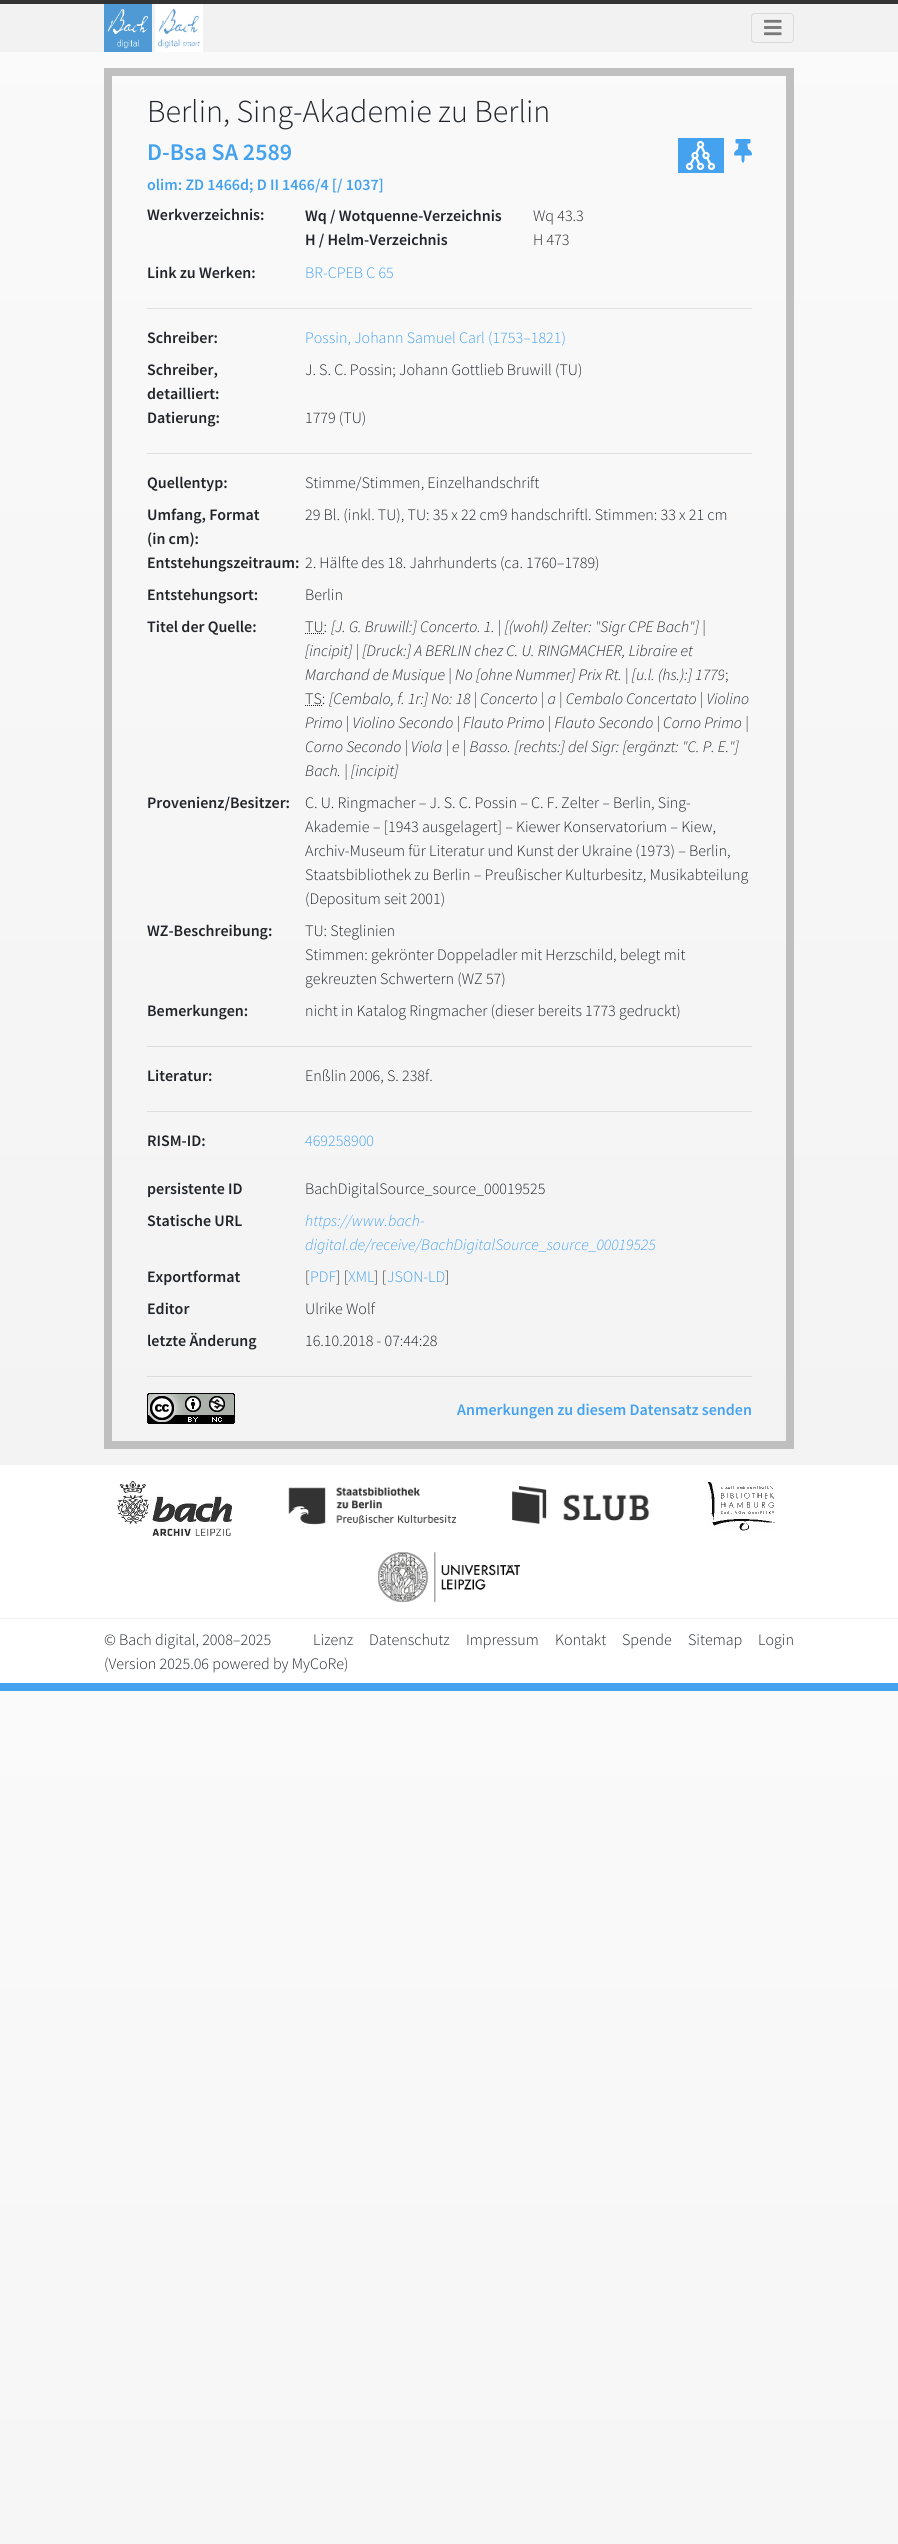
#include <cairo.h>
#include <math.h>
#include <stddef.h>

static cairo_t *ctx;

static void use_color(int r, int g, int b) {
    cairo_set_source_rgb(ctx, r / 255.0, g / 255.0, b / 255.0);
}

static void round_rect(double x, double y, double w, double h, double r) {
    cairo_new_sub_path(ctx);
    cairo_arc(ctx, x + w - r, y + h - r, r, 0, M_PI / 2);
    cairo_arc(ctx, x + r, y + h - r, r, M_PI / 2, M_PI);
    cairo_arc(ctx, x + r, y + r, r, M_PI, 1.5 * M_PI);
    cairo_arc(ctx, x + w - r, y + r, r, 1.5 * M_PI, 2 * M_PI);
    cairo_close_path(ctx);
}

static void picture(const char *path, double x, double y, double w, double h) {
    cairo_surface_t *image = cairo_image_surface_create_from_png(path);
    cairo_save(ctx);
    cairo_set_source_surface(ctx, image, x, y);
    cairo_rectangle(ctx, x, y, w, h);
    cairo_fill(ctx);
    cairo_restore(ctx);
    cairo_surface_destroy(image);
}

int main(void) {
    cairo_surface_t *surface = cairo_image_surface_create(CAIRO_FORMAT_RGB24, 898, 2544);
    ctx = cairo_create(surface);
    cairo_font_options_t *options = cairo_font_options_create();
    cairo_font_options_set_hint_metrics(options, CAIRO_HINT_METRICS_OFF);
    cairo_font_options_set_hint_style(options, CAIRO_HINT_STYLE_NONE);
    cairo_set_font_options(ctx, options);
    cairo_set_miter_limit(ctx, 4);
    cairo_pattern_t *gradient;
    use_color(255, 255, 255);
    cairo_paint(ctx);
    gradient = cairo_pattern_create_linear(449, 0, 449, 1691);
    cairo_pattern_add_color_stop_rgba(gradient, 0, 0.98, 0.98, 0.98, 1);
    cairo_pattern_add_color_stop_rgba(gradient, 1, 0.949, 0.949, 0.949, 1);
    cairo_set_source(ctx, gradient);
    cairo_pattern_destroy(gradient);
    cairo_rectangle(ctx, 0, 52, 898, 1413);
    cairo_fill(ctx);
    gradient = cairo_pattern_create_linear(449, 1691, 449, 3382);
    cairo_pattern_add_color_stop_rgba(gradient, 0, 0.98, 0.98, 0.98, 1);
    cairo_pattern_add_color_stop_rgba(gradient, 1, 0.949, 0.949, 0.949, 1);
    cairo_set_source(ctx, gradient);
    cairo_pattern_destroy(gradient);
    cairo_rectangle(ctx, 0, 1691, 898, 853);
    cairo_fill(ctx);
    use_color(51, 51, 51);
    cairo_rectangle(ctx, 0, 0, 898, 4);
    cairo_fill(ctx);
    use_color(242, 242, 242);
    cairo_rectangle(ctx, 0, 4, 898, 48);
    cairo_fill(ctx);
    picture("img1.png", 104, 4, 48, 48);
    use_color(255, 255, 255);
    cairo_rectangle(ctx, 155, 4, 48, 48);
    cairo_fill(ctx);
    picture("img2.png", 158, 8, 42, 41);
    round_rect(751.5, 13.5, 42, 29, 3.5);
    use_color(218, 218, 218);
    cairo_set_line_width(ctx, 1);
    cairo_stroke(ctx);
    picture("img3.png", 764, 19, 18, 17);
    cairo_rectangle(ctx, 108, 72, 682, 1373);
    use_color(191, 191, 191);
    cairo_set_line_width(ctx, 8);
    cairo_stroke(ctx);
    cairo_select_font_face(ctx, "Source Sans Pro Light", CAIRO_FONT_SLANT_NORMAL, CAIRO_FONT_WEIGHT_NORMAL);
    cairo_set_font_size(ctx, 32);
    use_color(33, 37, 41);
    cairo_move_to(ctx, 147, 122);
    cairo_show_text(ctx, "Berlin, Sing-Akademie zu Berlin");
    cairo_select_font_face(ctx, "Source Sans Pro SemiBold", CAIRO_FONT_SLANT_NORMAL, CAIRO_FONT_WEIGHT_NORMAL);
    cairo_set_font_size(ctx, 24);
    use_color(69, 162, 239);
    cairo_move_to(ctx, 147, 160);
    cairo_show_text(ctx, "D-Bsa SA 2589");
    cairo_rectangle(ctx, 678, 138, 46, 35);
    cairo_fill(ctx);
    picture("img4.png", 685, 140, 31, 31);
    picture("img5.png", 734, 139, 18, 24);
    cairo_set_font_size(ctx, 16);
    cairo_move_to(ctx, 147, 190);
    cairo_show_text(ctx, "olim: ZD 1466d; D II 1466/4 [/ 1037]");
    use_color(33, 37, 41);
    cairo_move_to(ctx, 147, 220);
    cairo_show_text(ctx, "Werkverzeichnis:");
    cairo_move_to(ctx, 305, 221);
    cairo_show_text(ctx, "Wq / Wotquenne-Verzeichnis");
    cairo_move_to(ctx, 305, 245);
    cairo_show_text(ctx, "H / Helm-Verzeichnis");
    cairo_select_font_face(ctx, "Source Sans Pro Light", CAIRO_FONT_SLANT_NORMAL, CAIRO_FONT_WEIGHT_NORMAL);
    cairo_move_to(ctx, 533, 221);
    cairo_show_text(ctx, "Wq 43.3");
    cairo_move_to(ctx, 533, 245);
    cairo_show_text(ctx, "H 473");
    cairo_select_font_face(ctx, "Source Sans Pro SemiBold", CAIRO_FONT_SLANT_NORMAL, CAIRO_FONT_WEIGHT_NORMAL);
    cairo_move_to(ctx, 147, 278);
    cairo_show_text(ctx, "Link zu Werken:");
    cairo_select_font_face(ctx, "Source Sans Pro Light", CAIRO_FONT_SLANT_NORMAL, CAIRO_FONT_WEIGHT_NORMAL);
    use_color(69, 162, 239);
    cairo_move_to(ctx, 305, 278);
    cairo_show_text(ctx, "BR-CPEB C 65");
    use_color(224, 224, 224);
    cairo_rectangle(ctx, 147, 308, 605, 1);
    cairo_fill(ctx);
    cairo_select_font_face(ctx, "Source Sans Pro SemiBold", CAIRO_FONT_SLANT_NORMAL, CAIRO_FONT_WEIGHT_NORMAL);
    use_color(33, 37, 41);
    cairo_move_to(ctx, 147, 343);
    cairo_show_text(ctx, "Schreiber:");
    cairo_select_font_face(ctx, "Source Sans Pro Light", CAIRO_FONT_SLANT_NORMAL, CAIRO_FONT_WEIGHT_NORMAL);
    use_color(69, 162, 239);
    cairo_move_to(ctx, 305, 343);
    cairo_show_text(ctx, "Possin, Johann Samuel Carl (1753–1821)");
    cairo_select_font_face(ctx, "Source Sans Pro SemiBold", CAIRO_FONT_SLANT_NORMAL, CAIRO_FONT_WEIGHT_NORMAL);
    use_color(33, 37, 41);
    cairo_move_to(ctx, 147, 375);
    cairo_show_text(ctx, "Schreiber,");
    cairo_move_to(ctx, 147, 399);
    cairo_show_text(ctx, "detailliert:");
    cairo_select_font_face(ctx, "Source Sans Pro Light", CAIRO_FONT_SLANT_NORMAL, CAIRO_FONT_WEIGHT_NORMAL);
    cairo_move_to(ctx, 305, 375);
    cairo_show_text(ctx, "J. S. C. Possin; Johann Gottlieb Bruwill (TU)");
    cairo_select_font_face(ctx, "Source Sans Pro SemiBold", CAIRO_FONT_SLANT_NORMAL, CAIRO_FONT_WEIGHT_NORMAL);
    cairo_move_to(ctx, 147, 423);
    cairo_show_text(ctx, "Datierung:");
    cairo_select_font_face(ctx, "Source Sans Pro Light", CAIRO_FONT_SLANT_NORMAL, CAIRO_FONT_WEIGHT_NORMAL);
    cairo_move_to(ctx, 305, 423);
    cairo_show_text(ctx, "1779 (TU)");
    use_color(223, 223, 223);
    cairo_rectangle(ctx, 147, 453, 605, 1);
    cairo_fill(ctx);
    cairo_select_font_face(ctx, "Source Sans Pro SemiBold", CAIRO_FONT_SLANT_NORMAL, CAIRO_FONT_WEIGHT_NORMAL);
    use_color(33, 37, 41);
    cairo_move_to(ctx, 147, 488);
    cairo_show_text(ctx, "Quellentyp:");
    cairo_select_font_face(ctx, "Source Sans Pro Light", CAIRO_FONT_SLANT_NORMAL, CAIRO_FONT_WEIGHT_NORMAL);
    cairo_move_to(ctx, 305, 488);
    cairo_show_text(ctx, "Stimme/Stimmen, Einzelhandschrift");
    cairo_select_font_face(ctx, "Source Sans Pro SemiBold", CAIRO_FONT_SLANT_NORMAL, CAIRO_FONT_WEIGHT_NORMAL);
    cairo_move_to(ctx, 147, 520);
    cairo_show_text(ctx, "Umfang, Format");
    cairo_move_to(ctx, 147, 544);
    cairo_show_text(ctx, "(in cm):");
    cairo_select_font_face(ctx, "Source Sans Pro Light", CAIRO_FONT_SLANT_NORMAL, CAIRO_FONT_WEIGHT_NORMAL);
    cairo_move_to(ctx, 305, 520);
    cairo_show_text(ctx, "29 Bl. (inkl. TU), TU: 35 x 22 cm9 handschriftl. Stimmen: 33 x 21 cm");
    cairo_select_font_face(ctx, "Source Sans Pro SemiBold", CAIRO_FONT_SLANT_NORMAL, CAIRO_FONT_WEIGHT_NORMAL);
    cairo_move_to(ctx, 147, 568);
    cairo_show_text(ctx, "Entstehungszeitraum:");
    cairo_select_font_face(ctx, "Source Sans Pro Light", CAIRO_FONT_SLANT_NORMAL, CAIRO_FONT_WEIGHT_NORMAL);
    cairo_move_to(ctx, 305, 568);
    cairo_show_text(ctx, "2. Hälfte des 18. Jahrhunderts (ca. 1760–1789)");
    cairo_select_font_face(ctx, "Source Sans Pro SemiBold", CAIRO_FONT_SLANT_NORMAL, CAIRO_FONT_WEIGHT_NORMAL);
    cairo_move_to(ctx, 147, 600);
    cairo_show_text(ctx, "Entstehungsort:");
    cairo_select_font_face(ctx, "Source Sans Pro Light", CAIRO_FONT_SLANT_NORMAL, CAIRO_FONT_WEIGHT_NORMAL);
    cairo_move_to(ctx, 305, 600);
    cairo_show_text(ctx, "Berlin");
    cairo_select_font_face(ctx, "Source Sans Pro SemiBold", CAIRO_FONT_SLANT_NORMAL, CAIRO_FONT_WEIGHT_NORMAL);
    cairo_move_to(ctx, 147, 632);
    cairo_show_text(ctx, "Titel der Quelle:");
    cairo_select_font_face(ctx, "Source Sans Pro Light", CAIRO_FONT_SLANT_NORMAL, CAIRO_FONT_WEIGHT_NORMAL);
    cairo_move_to(ctx, 305, 632);
    cairo_show_text(ctx, "TU:");
    cairo_new_path(ctx);
    cairo_move_to(ctx, 305, 633.5);
    cairo_line_to(ctx, 324, 633.5);
    cairo_set_line_width(ctx, 1);
    cairo_set_dash(ctx, (double[]){1, 1}, 2, 0);
    cairo_stroke(ctx);
    cairo_select_font_face(ctx, "Source Sans Pro Light", CAIRO_FONT_SLANT_ITALIC, CAIRO_FONT_WEIGHT_NORMAL);
    cairo_move_to(ctx, 331, 632);
    cairo_show_text(ctx, "[J. G. Bruwill:] Concerto. 1. | [(wohl) Zelter: \"Sigr CPE Bach\"] |");
    cairo_move_to(ctx, 305, 656);
    cairo_show_text(ctx, "[incipit] | [Druck:] A BERLIN chez C. U. RINGMACHER, Libraire et");
    cairo_move_to(ctx, 305, 680);
    cairo_show_text(ctx, "Marchand de Musique | No [ohne Nummer] Prix Rt. | [u.l. (hs.):] 1779");
    cairo_select_font_face(ctx, "Source Sans Pro Light", CAIRO_FONT_SLANT_NORMAL, CAIRO_FONT_WEIGHT_NORMAL);
    cairo_move_to(ctx, 725, 680);
    cairo_show_text(ctx, ";");
    cairo_move_to(ctx, 305, 704);
    cairo_show_text(ctx, "TS:");
    cairo_new_path(ctx);
    cairo_move_to(ctx, 305, 705.5);
    cairo_line_to(ctx, 322, 705.5);
    cairo_stroke(ctx);
    cairo_select_font_face(ctx, "Source Sans Pro Light", CAIRO_FONT_SLANT_ITALIC, CAIRO_FONT_WEIGHT_NORMAL);
    cairo_move_to(ctx, 329, 704);
    cairo_show_text(ctx, "[Cembalo, f. 1r:] No: 18 | Concerto | a | Cembalo Concertato | Violino");
    cairo_move_to(ctx, 305, 728);
    cairo_show_text(ctx, "Primo | Violino Secondo | Flauto Primo | Flauto Secondo | Corno Primo |");
    cairo_move_to(ctx, 305, 752);
    cairo_show_text(ctx, "Corno Secondo | Viola | e | Basso. [rechts:] del Sigr: [ergänzt: \"C. P. E.\"]");
    cairo_move_to(ctx, 305, 776);
    cairo_show_text(ctx, "Bach. | [incipit]");
    cairo_select_font_face(ctx, "Source Sans Pro SemiBold", CAIRO_FONT_SLANT_NORMAL, CAIRO_FONT_WEIGHT_NORMAL);
    cairo_move_to(ctx, 147, 808);
    cairo_show_text(ctx, "Provenienz/Besitzer:");
    cairo_select_font_face(ctx, "Source Sans Pro Light", CAIRO_FONT_SLANT_NORMAL, CAIRO_FONT_WEIGHT_NORMAL);
    cairo_move_to(ctx, 305, 808);
    cairo_show_text(ctx, "C. U. Ringmacher – J. S. C. Possin – C. F. Zelter – Berlin, Sing-");
    cairo_move_to(ctx, 305, 832);
    cairo_show_text(ctx, "Akademie – [1943 ausgelagert] – Kiewer Konservatorium – Kiew,");
    cairo_move_to(ctx, 305, 856);
    cairo_show_text(ctx, "Archiv-Museum für Literatur und Kunst der Ukraine (1973) – Berlin,");
    cairo_move_to(ctx, 305, 880);
    cairo_show_text(ctx, "Staatsbibliothek zu Berlin – Preußischer Kulturbesitz, Musikabteilung");
    cairo_move_to(ctx, 305, 904);
    cairo_show_text(ctx, "(Depositum seit 2001)");
    cairo_select_font_face(ctx, "Source Sans Pro SemiBold", CAIRO_FONT_SLANT_NORMAL, CAIRO_FONT_WEIGHT_NORMAL);
    cairo_move_to(ctx, 147, 936);
    cairo_show_text(ctx, "WZ-Beschreibung:");
    cairo_select_font_face(ctx, "Source Sans Pro Light", CAIRO_FONT_SLANT_NORMAL, CAIRO_FONT_WEIGHT_NORMAL);
    cairo_move_to(ctx, 305, 936);
    cairo_show_text(ctx, "TU: Steglinien");
    cairo_move_to(ctx, 305, 960);
    cairo_show_text(ctx, "Stimmen: gekrönter Doppeladler mit Herzschild, belegt mit");
    cairo_move_to(ctx, 305, 984);
    cairo_show_text(ctx, "gekreuzten Schwertern (WZ 57)");
    cairo_select_font_face(ctx, "Source Sans Pro SemiBold", CAIRO_FONT_SLANT_NORMAL, CAIRO_FONT_WEIGHT_NORMAL);
    cairo_move_to(ctx, 147, 1016);
    cairo_show_text(ctx, "Bemerkungen:");
    cairo_select_font_face(ctx, "Source Sans Pro Light", CAIRO_FONT_SLANT_NORMAL, CAIRO_FONT_WEIGHT_NORMAL);
    cairo_move_to(ctx, 305, 1016);
    cairo_show_text(ctx, "nicht in Katalog Ringmacher (dieser bereits 1773 gedruckt)");
    use_color(221, 221, 221);
    cairo_rectangle(ctx, 147, 1046, 605, 1);
    cairo_fill(ctx);
    cairo_select_font_face(ctx, "Source Sans Pro SemiBold", CAIRO_FONT_SLANT_NORMAL, CAIRO_FONT_WEIGHT_NORMAL);
    use_color(33, 37, 41);
    cairo_move_to(ctx, 147, 1081);
    cairo_show_text(ctx, "Literatur:");
    cairo_select_font_face(ctx, "Source Sans Pro Light", CAIRO_FONT_SLANT_NORMAL, CAIRO_FONT_WEIGHT_NORMAL);
    cairo_move_to(ctx, 305, 1081);
    cairo_show_text(ctx, "Enßlin 2006, S. 238f.");
    use_color(221, 221, 221);
    cairo_rectangle(ctx, 147, 1111, 605, 1);
    cairo_fill(ctx);
    cairo_select_font_face(ctx, "Source Sans Pro SemiBold", CAIRO_FONT_SLANT_NORMAL, CAIRO_FONT_WEIGHT_NORMAL);
    use_color(33, 37, 41);
    cairo_move_to(ctx, 147, 1146);
    cairo_show_text(ctx, "RISM-ID:");
    cairo_select_font_face(ctx, "Source Sans Pro Light", CAIRO_FONT_SLANT_NORMAL, CAIRO_FONT_WEIGHT_NORMAL);
    use_color(69, 162, 239);
    cairo_move_to(ctx, 305, 1146);
    cairo_show_text(ctx, "469258900");
    cairo_select_font_face(ctx, "Source Sans Pro SemiBold", CAIRO_FONT_SLANT_NORMAL, CAIRO_FONT_WEIGHT_NORMAL);
    use_color(33, 37, 41);
    cairo_move_to(ctx, 147, 1194);
    cairo_show_text(ctx, "persistente ID");
    cairo_select_font_face(ctx, "Source Sans Pro Light", CAIRO_FONT_SLANT_NORMAL, CAIRO_FONT_WEIGHT_NORMAL);
    cairo_move_to(ctx, 305, 1194);
    cairo_show_text(ctx, "BachDigitalSource_source_00019525");
    cairo_select_font_face(ctx, "Source Sans Pro SemiBold", CAIRO_FONT_SLANT_NORMAL, CAIRO_FONT_WEIGHT_NORMAL);
    cairo_move_to(ctx, 147, 1226);
    cairo_show_text(ctx, "Statische URL");
    cairo_select_font_face(ctx, "Source Sans Pro Light", CAIRO_FONT_SLANT_ITALIC, CAIRO_FONT_WEIGHT_NORMAL);
    use_color(69, 162, 239);
    cairo_move_to(ctx, 305, 1226);
    cairo_show_text(ctx, "https://www.bach-");
    cairo_move_to(ctx, 305, 1250);
    cairo_show_text(ctx, "digital.de/receive/BachDigitalSource_source_00019525");
    cairo_select_font_face(ctx, "Source Sans Pro SemiBold", CAIRO_FONT_SLANT_NORMAL, CAIRO_FONT_WEIGHT_NORMAL);
    use_color(33, 37, 41);
    cairo_move_to(ctx, 147, 1282);
    cairo_show_text(ctx, "Exportformat");
    cairo_select_font_face(ctx, "Source Sans Pro Light", CAIRO_FONT_SLANT_NORMAL, CAIRO_FONT_WEIGHT_NORMAL);
    cairo_move_to(ctx, 305, 1282);
    cairo_show_text(ctx, "[");
    use_color(69, 162, 239);
    cairo_move_to(ctx, 310, 1282);
    cairo_show_text(ctx, "PDF");
    use_color(33, 37, 41);
    cairo_move_to(ctx, 336, 1282);
    cairo_show_text(ctx, "] [");
    use_color(69, 162, 239);
    cairo_move_to(ctx, 348, 1282);
    cairo_show_text(ctx, "XML");
    use_color(33, 37, 41);
    cairo_move_to(ctx, 374, 1282);
    cairo_show_text(ctx, "] [");
    use_color(69, 162, 239);
    cairo_move_to(ctx, 387, 1282);
    cairo_show_text(ctx, "JSON-LD");
    use_color(33, 37, 41);
    cairo_move_to(ctx, 445, 1282);
    cairo_show_text(ctx, "]");
    cairo_select_font_face(ctx, "Source Sans Pro SemiBold", CAIRO_FONT_SLANT_NORMAL, CAIRO_FONT_WEIGHT_NORMAL);
    cairo_move_to(ctx, 147, 1314);
    cairo_show_text(ctx, "Editor");
    cairo_select_font_face(ctx, "Source Sans Pro Light", CAIRO_FONT_SLANT_NORMAL, CAIRO_FONT_WEIGHT_NORMAL);
    cairo_move_to(ctx, 305, 1314);
    cairo_show_text(ctx, "Ulrike Wolf");
    cairo_select_font_face(ctx, "Source Sans Pro SemiBold", CAIRO_FONT_SLANT_NORMAL, CAIRO_FONT_WEIGHT_NORMAL);
    cairo_move_to(ctx, 147, 1346);
    cairo_show_text(ctx, "letzte Änderung");
    cairo_select_font_face(ctx, "Source Sans Pro Light", CAIRO_FONT_SLANT_NORMAL, CAIRO_FONT_WEIGHT_NORMAL);
    cairo_move_to(ctx, 305, 1346);
    cairo_show_text(ctx, "16.10.2018 - 07:44:28");
    use_color(219, 219, 219);
    cairo_rectangle(ctx, 147, 1376, 605, 1);
    cairo_fill(ctx);
    picture("img6.png", 147, 1393, 88, 31);
    cairo_select_font_face(ctx, "Source Sans Pro SemiBold", CAIRO_FONT_SLANT_NORMAL, CAIRO_FONT_WEIGHT_NORMAL);
    use_color(69, 162, 239);
    cairo_move_to(ctx, 457, 1415);
    cairo_show_text(ctx, "Anmerkungen zu diesem Datensatz senden");
    cairo_rectangle(ctx, 0, 1683, 898, 8);
    cairo_fill(ctx);
    picture("img7.png", 117, 1481, 115, 55);
    picture("img8.png", 288, 1486, 169, 39);
    picture("img9.png", 512, 1486, 138, 38);
    picture("img10.png", 708, 1482, 67, 49);
    picture("img11.png", 378, 1552, 142, 50);
    use_color(242, 242, 242);
    cairo_rectangle(ctx, 0, 1618, 898, 1);
    cairo_fill(ctx);
    cairo_select_font_face(ctx, "Source Sans Pro Light", CAIRO_FONT_SLANT_NORMAL, CAIRO_FONT_WEIGHT_NORMAL);
    use_color(33, 37, 41);
    cairo_move_to(ctx, 104, 1645);
    cairo_show_text(ctx, "© Bach digital, 2008–2025");
    cairo_move_to(ctx, 104, 1669);
    cairo_show_text(ctx, "(Version 2025.06 powered by MyCoRe)");
    cairo_move_to(ctx, 369, 1645);
    cairo_show_text(ctx, "Datenschutz");
    cairo_move_to(ctx, 555, 1645);
    cairo_show_text(ctx, "Kontakt");
    cairo_move_to(ctx, 622, 1645);
    cairo_show_text(ctx, "Spende");
    cairo_move_to(ctx, 313, 1645);
    cairo_show_text(ctx, "Lizenz");
    cairo_move_to(ctx, 466, 1645);
    cairo_show_text(ctx, "Impressum");
    cairo_move_to(ctx, 688, 1645);
    cairo_show_text(ctx, "Sitemap");
    cairo_move_to(ctx, 758, 1645);
    cairo_show_text(ctx, "Login");
    cairo_surface_write_to_png(surface, "result.png");
    cairo_font_options_destroy(options);
    cairo_destroy(ctx);
    cairo_surface_destroy(surface);
    return 0;
}
